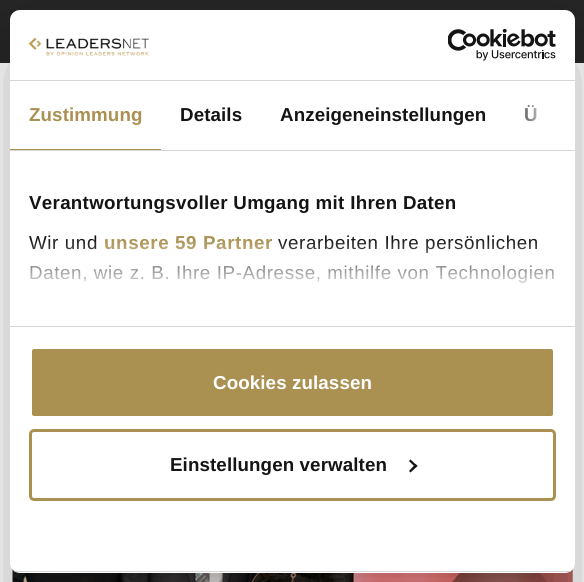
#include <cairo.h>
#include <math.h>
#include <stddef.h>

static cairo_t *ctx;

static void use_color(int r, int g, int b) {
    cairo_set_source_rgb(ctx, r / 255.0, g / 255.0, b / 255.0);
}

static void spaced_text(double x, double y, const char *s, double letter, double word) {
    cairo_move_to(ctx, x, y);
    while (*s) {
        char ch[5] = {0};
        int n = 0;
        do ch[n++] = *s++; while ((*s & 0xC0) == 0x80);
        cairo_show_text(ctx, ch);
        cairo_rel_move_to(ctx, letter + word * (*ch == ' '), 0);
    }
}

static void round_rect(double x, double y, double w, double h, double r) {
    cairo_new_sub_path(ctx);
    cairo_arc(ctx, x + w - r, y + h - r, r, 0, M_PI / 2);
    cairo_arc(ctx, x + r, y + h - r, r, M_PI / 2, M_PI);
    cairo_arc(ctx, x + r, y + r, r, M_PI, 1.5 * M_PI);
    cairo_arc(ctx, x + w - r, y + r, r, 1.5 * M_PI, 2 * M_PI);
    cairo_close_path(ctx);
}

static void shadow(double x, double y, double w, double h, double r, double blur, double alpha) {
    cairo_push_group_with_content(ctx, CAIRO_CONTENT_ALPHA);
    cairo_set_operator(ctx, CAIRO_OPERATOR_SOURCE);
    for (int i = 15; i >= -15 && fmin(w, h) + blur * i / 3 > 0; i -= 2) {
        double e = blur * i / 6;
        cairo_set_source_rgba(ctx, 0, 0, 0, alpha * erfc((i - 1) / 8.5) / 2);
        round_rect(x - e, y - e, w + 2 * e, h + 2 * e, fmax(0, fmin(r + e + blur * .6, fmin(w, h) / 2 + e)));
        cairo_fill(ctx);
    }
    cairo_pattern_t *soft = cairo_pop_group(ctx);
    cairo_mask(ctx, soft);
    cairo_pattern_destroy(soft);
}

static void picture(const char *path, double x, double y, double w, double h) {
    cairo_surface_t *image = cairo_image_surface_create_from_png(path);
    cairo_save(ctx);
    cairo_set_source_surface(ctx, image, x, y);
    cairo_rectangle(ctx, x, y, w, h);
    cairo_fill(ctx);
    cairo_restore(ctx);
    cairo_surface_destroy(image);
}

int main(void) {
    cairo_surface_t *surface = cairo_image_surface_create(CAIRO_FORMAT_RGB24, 584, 582);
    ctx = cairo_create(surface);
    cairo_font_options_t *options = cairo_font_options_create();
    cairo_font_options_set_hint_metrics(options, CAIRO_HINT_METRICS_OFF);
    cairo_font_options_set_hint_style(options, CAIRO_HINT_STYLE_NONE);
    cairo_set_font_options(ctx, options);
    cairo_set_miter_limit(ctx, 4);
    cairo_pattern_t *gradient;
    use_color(255, 255, 255);
    cairo_paint(ctx);
    use_color(38, 38, 38);
    cairo_rectangle(ctx, 0, 0, 584, 63);
    cairo_fill(ctx);
    use_color(200, 200, 200);
    cairo_rectangle(ctx, 572, 569, 1, 13);
    cairo_fill(ctx);
    picture("img3.png", 12, 569, 561, 13);
    use_color(0, 0, 0);
    shadow(10, 50, 565, 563, 10, 42.5, 0.3);
    use_color(255, 255, 255);
    round_rect(10, 10, 565, 563, 10);
    cairo_fill(ctx);
    use_color(214, 214, 214);
    cairo_rectangle(ctx, 10, 80, 565, 1);
    cairo_fill(ctx);
    picture("img1.png", 28, 37, 121, 19);
    picture("img2.png", 448, 29, 108, 32);
    cairo_rectangle(ctx, 10, 150, 565, 1);
    cairo_fill(ctx);
    use_color(170, 145, 82);
    cairo_rectangle(ctx, 10, 149, 151, 1);
    cairo_fill(ctx);
    cairo_select_font_face(ctx, "Liberation Sans", CAIRO_FONT_SLANT_NORMAL, CAIRO_FONT_WEIGHT_BOLD);
    cairo_set_font_size(ctx, 18.75);
    spaced_text(29, 121, "Zustimmung", 0.1, 0);
    use_color(20, 20, 20);
    spaced_text(180, 121, "Details", 0.1, 0);
    spaced_text(280, 121, "Anzeigeneinstellungen", 0.1, 0);
    spaced_text(524, 121, "Ü", 0.1, 0);
    gradient = cairo_pattern_create_linear(575, 116, 510, 116);
    cairo_pattern_add_color_stop_rgba(gradient, 0, 1, 1, 1, 1);
    cairo_pattern_add_color_stop_rgba(gradient, 0.5, 1, 1, 1, 0.8);
    cairo_pattern_add_color_stop_rgba(gradient, 1, 1, 1, 1, 0);
    cairo_set_source(ctx, gradient);
    cairo_pattern_destroy(gradient);
    cairo_rectangle(ctx, 525, 105, 12, 17);
    cairo_fill(ctx);
    use_color(214, 214, 214);
    cairo_rectangle(ctx, 10, 326, 565, 1);
    cairo_fill(ctx);
    use_color(20, 20, 20);
    spaced_text(29, 209, "Verantwortungsvoller Umgang mit Ihren Daten", 0.3, 0);
    cairo_select_font_face(ctx, "Liberation Sans", CAIRO_FONT_SLANT_NORMAL, CAIRO_FONT_WEIGHT_NORMAL);
    spaced_text(29, 249, "Wir und", 0.62, 0);
    cairo_select_font_face(ctx, "Liberation Sans", CAIRO_FONT_SLANT_NORMAL, CAIRO_FONT_WEIGHT_BOLD);
    use_color(170, 145, 82);
    spaced_text(104, 249, "unsere 59 Partner", 0.62, 0);
    cairo_select_font_face(ctx, "Liberation Sans", CAIRO_FONT_SLANT_NORMAL, CAIRO_FONT_WEIGHT_NORMAL);
    use_color(20, 20, 20);
    spaced_text(278, 249, "verarbeiten Ihre persönlichen", 0.62, 0);
    spaced_text(29, 279, "Daten, wie z. B. Ihre IP-Adresse, mithilfe von Technologien", 0.62, 0);
    gradient = cairo_pattern_create_linear(284, 326, 284, 239);
    cairo_pattern_add_color_stop_rgba(gradient, 0, 1, 1, 1, 1);
    cairo_pattern_add_color_stop_rgba(gradient, 0.5, 1, 1, 1, 0.8);
    cairo_pattern_add_color_stop_rgba(gradient, 1, 1, 1, 1, 0);
    cairo_set_source(ctx, gradient);
    cairo_pattern_destroy(gradient);
    cairo_rectangle(ctx, 30, 240, 524, 43);
    cairo_fill(ctx);
    cairo_save(ctx);
    round_rect(10, 10, 565, 563, 10);
    cairo_clip(ctx);
    use_color(214, 214, 214);
    cairo_rectangle(ctx, 10, 571, 565, 1);
    cairo_fill(ctx);
    cairo_restore(ctx);
    use_color(170, 145, 82);
    round_rect(30.5, 347.5, 524, 70, 3.5);
    cairo_fill_preserve(ctx);
    use_color(255, 255, 255);
    cairo_set_line_width(ctx, 3);
    cairo_stroke(ctx);
    cairo_select_font_face(ctx, "Liberation Sans", CAIRO_FONT_SLANT_NORMAL, CAIRO_FONT_WEIGHT_BOLD);
    spaced_text(213, 389, "Cookies zulassen", 0.1, 0);
    round_rect(30.5, 430.5, 524, 69, 3.5);
    use_color(170, 145, 82);
    cairo_stroke(ctx);
    use_color(20, 20, 20);
    spaced_text(170, 471, "Einstellungen verwalten", 0.1, 0);
    cairo_new_path(ctx);
    cairo_move_to(ctx, 410.5, 459.5);
    cairo_line_to(ctx, 417.5, 466);
    cairo_line_to(ctx, 415.5, 467.5);
    cairo_line_to(ctx, 409, 461);
    cairo_close_path(ctx);
    cairo_fill(ctx);
    cairo_new_path(ctx);
    cairo_move_to(ctx, 415.5, 464);
    cairo_line_to(ctx, 417.5, 466);
    cairo_line_to(ctx, 410.5, 472.5);
    cairo_line_to(ctx, 409, 471);
    cairo_close_path(ctx);
    cairo_fill(ctx);
    cairo_surface_write_to_png(surface, "result.png");
    cairo_font_options_destroy(options);
    cairo_destroy(ctx);
    cairo_surface_destroy(surface);
    return 0;
}
